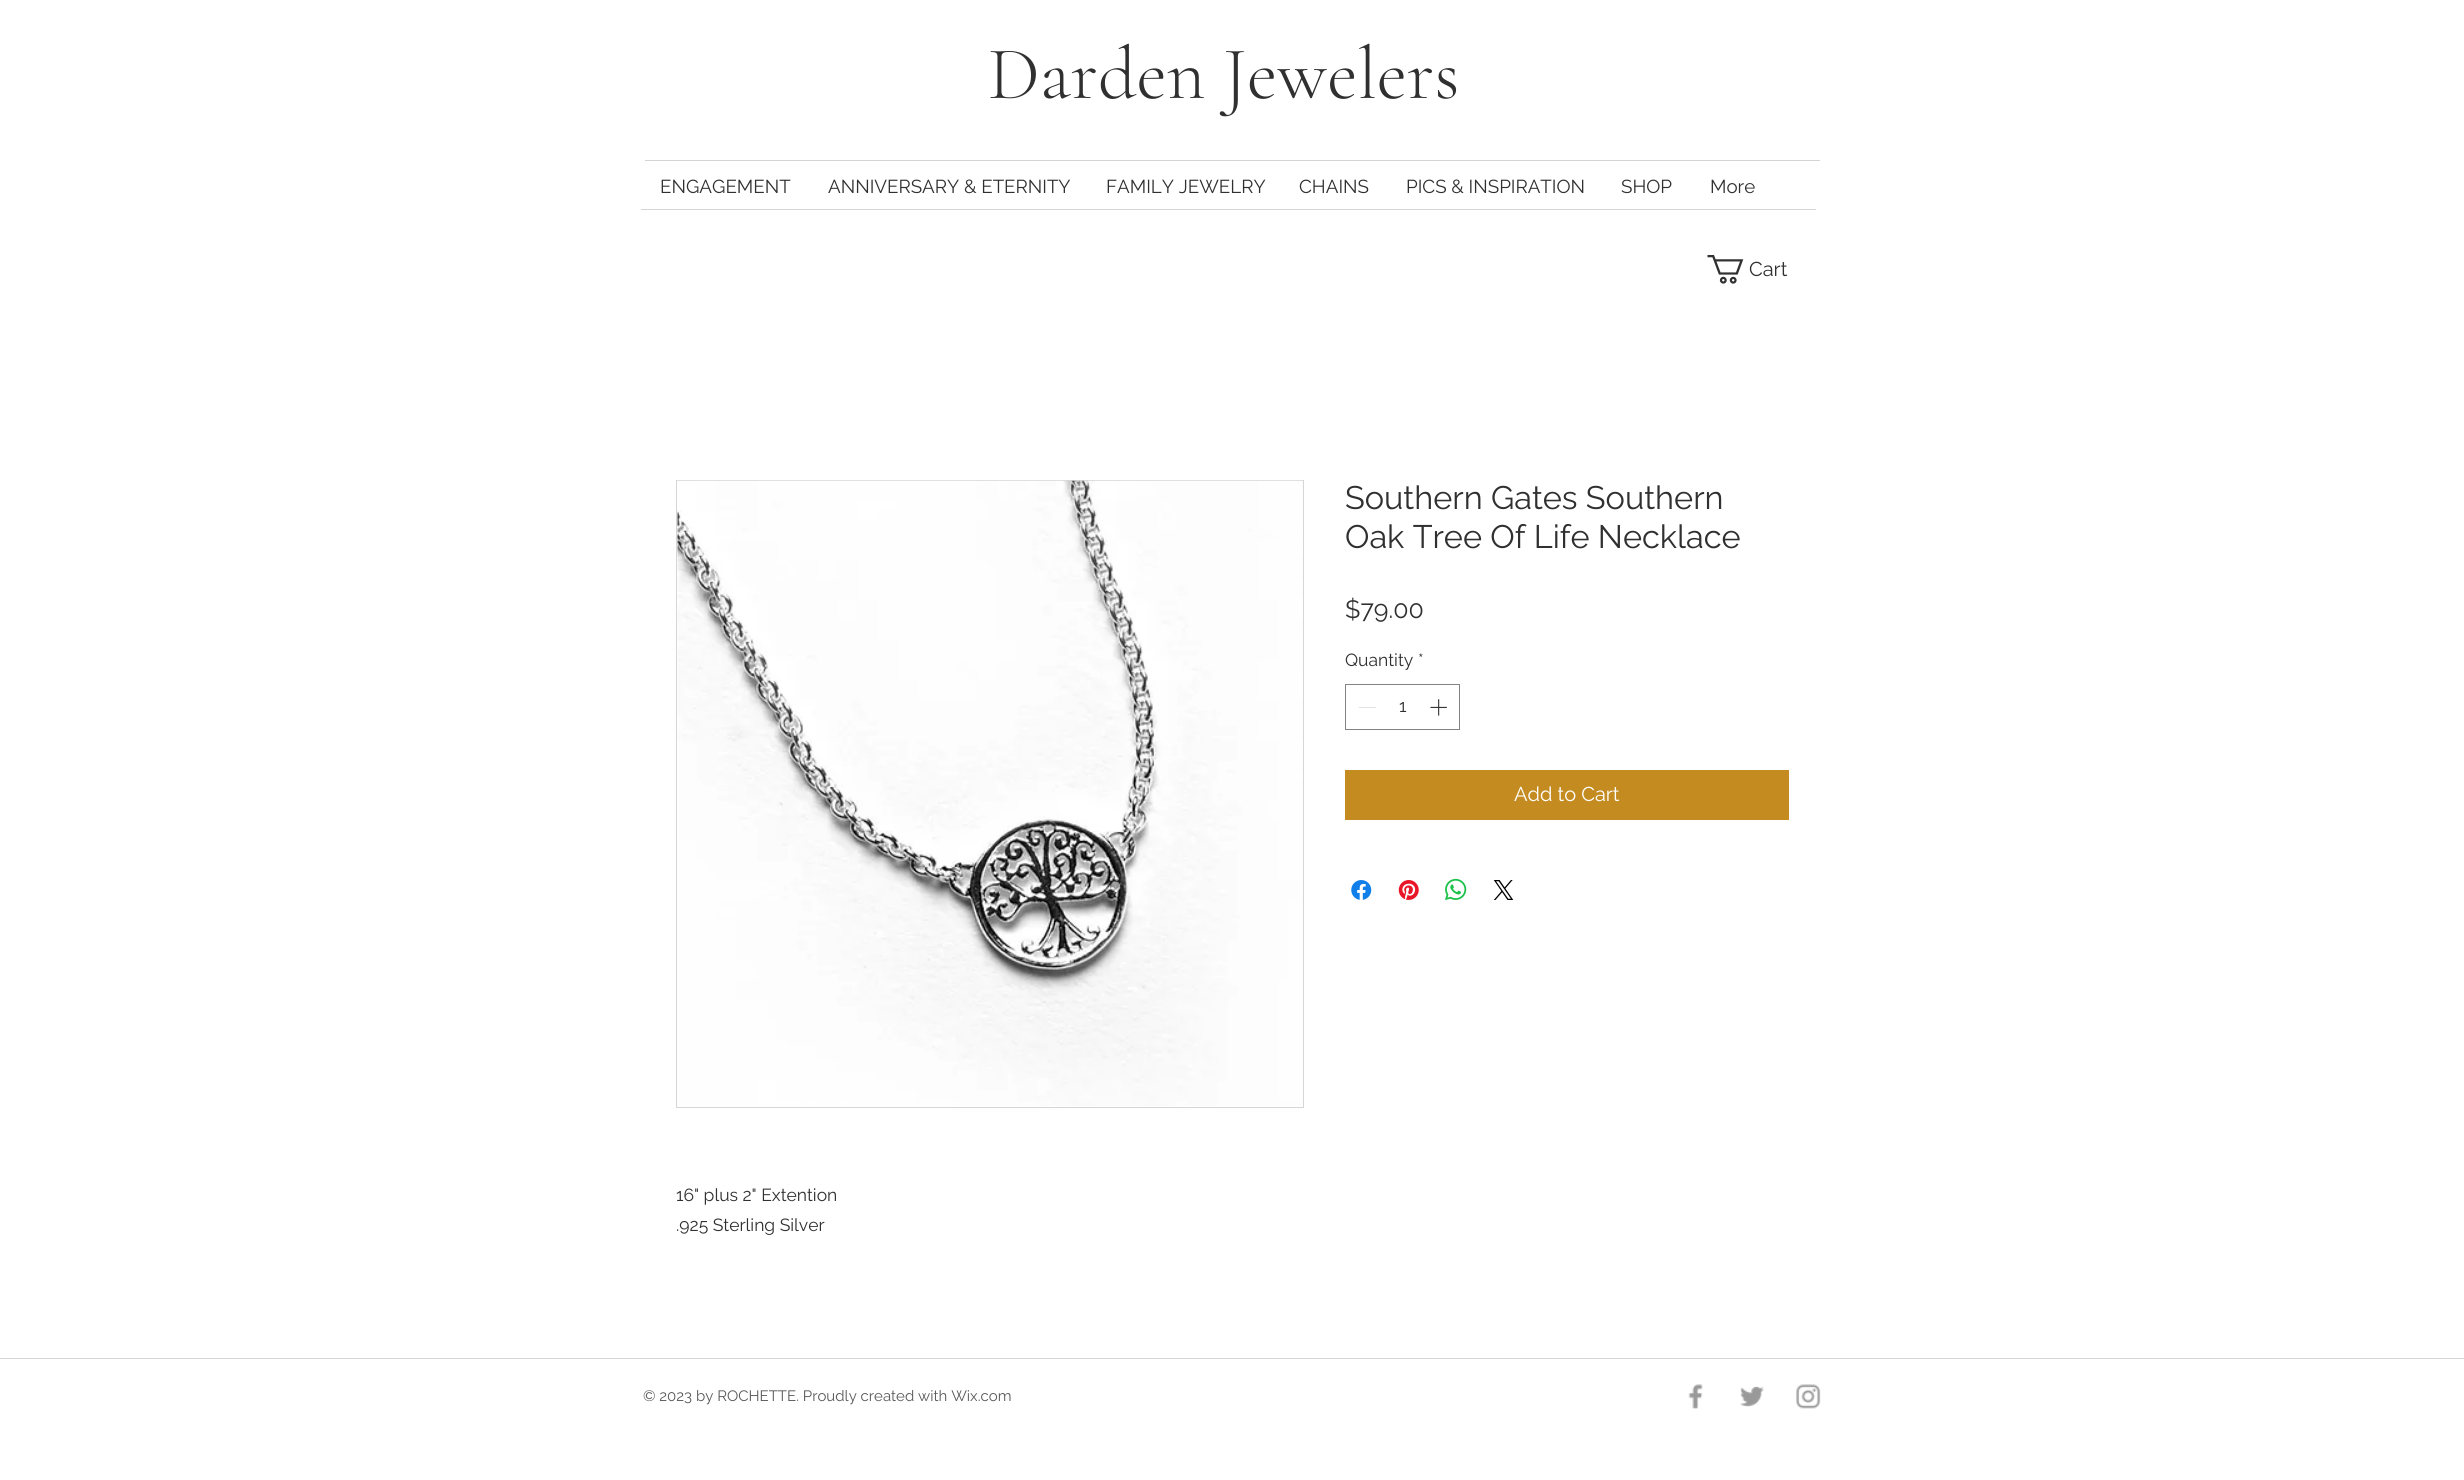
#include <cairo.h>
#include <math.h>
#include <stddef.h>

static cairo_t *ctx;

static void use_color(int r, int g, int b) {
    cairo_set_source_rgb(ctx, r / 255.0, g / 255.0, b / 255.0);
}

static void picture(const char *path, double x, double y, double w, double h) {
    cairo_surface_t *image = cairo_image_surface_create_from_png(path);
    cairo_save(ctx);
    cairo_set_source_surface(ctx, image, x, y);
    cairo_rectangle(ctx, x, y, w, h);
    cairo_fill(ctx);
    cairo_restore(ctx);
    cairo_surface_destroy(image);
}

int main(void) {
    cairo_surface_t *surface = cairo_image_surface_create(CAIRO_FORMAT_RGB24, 2464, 1480);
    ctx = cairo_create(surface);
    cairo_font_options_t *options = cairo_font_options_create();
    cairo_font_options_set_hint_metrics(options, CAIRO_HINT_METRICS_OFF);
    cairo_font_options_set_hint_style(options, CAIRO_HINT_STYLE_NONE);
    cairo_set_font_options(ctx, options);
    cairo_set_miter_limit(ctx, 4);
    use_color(255, 255, 255);
    cairo_paint(ctx);
    cairo_select_font_face(ctx, "Cormorant Garamond Light", CAIRO_FONT_SLANT_NORMAL, CAIRO_FONT_WEIGHT_NORMAL);
    cairo_set_font_size(ctx, 75);
    use_color(48, 48, 48);
    cairo_move_to(ctx, 988, 98);
    cairo_show_text(ctx, "Darden Jewelers");
    use_color(212, 212, 212);
    cairo_rectangle(ctx, 645, 160, 1175, 1);
    cairo_fill(ctx);
    cairo_select_font_face(ctx, "Raleway", CAIRO_FONT_SLANT_NORMAL, CAIRO_FONT_WEIGHT_NORMAL);
    cairo_set_font_size(ctx, 18.75);
    use_color(48, 48, 48);
    cairo_move_to(ctx, 660, 193);
    cairo_show_text(ctx, "ENGAGEMENT");
    cairo_move_to(ctx, 828, 193);
    cairo_show_text(ctx, "ANNIVERSARY & ETERNITY");
    cairo_move_to(ctx, 1106, 193);
    cairo_show_text(ctx, "FAMILY JEWELRY");
    cairo_move_to(ctx, 1299, 193);
    cairo_show_text(ctx, "CHAINS");
    cairo_move_to(ctx, 1406, 193);
    cairo_show_text(ctx, "PICS & INSPIRATION");
    cairo_move_to(ctx, 1621, 193);
    cairo_show_text(ctx, "SHOP");
    cairo_move_to(ctx, 1710, 193);
    cairo_show_text(ctx, "More");
    use_color(212, 212, 212);
    cairo_rectangle(ctx, 641, 209, 1175, 1);
    cairo_fill(ctx);
    picture("img1.png", 1707, 255, 37, 29);
    cairo_set_font_size(ctx, 20);
    use_color(48, 48, 48);
    cairo_move_to(ctx, 1749, 276);
    cairo_show_text(ctx, "Cart");
    cairo_set_font_size(ctx, 32.5);
    cairo_move_to(ctx, 1345, 509);
    cairo_show_text(ctx, "Southern Gates Southern");
    cairo_move_to(ctx, 1345, 548);
    cairo_show_text(ctx, "Oak Tree Of Life Necklace");
    cairo_set_font_size(ctx, 25);
    cairo_move_to(ctx, 1345, 618);
    cairo_show_text(ctx, "$79.00");
    cairo_set_font_size(ctx, 17.5);
    cairo_move_to(ctx, 1345, 666);
    cairo_show_text(ctx, "Quantity");
    cairo_move_to(ctx, 1418, 666);
    cairo_show_text(ctx, "*");
    cairo_rectangle(ctx, 1345.5, 684.5, 114, 45);
    use_color(131, 131, 131);
    cairo_set_line_width(ctx, 1);
    cairo_stroke(ctx);
    use_color(227, 227, 227);
    cairo_rectangle(ctx, 1359, 707, 17, 1);
    cairo_fill(ctx);
    use_color(48, 48, 48);
    cairo_move_to(ctx, 1399, 712);
    cairo_show_text(ctx, "1");
    picture("img2.png", 1430, 699, 17, 17);
    use_color(196, 139, 33);
    cairo_rectangle(ctx, 1345, 770, 444, 50);
    cairo_fill(ctx);
    cairo_set_font_size(ctx, 20);
    use_color(255, 255, 255);
    cairo_move_to(ctx, 1514, 801);
    cairo_show_text(ctx, "Add to Cart");
    picture("img3.png", 1351, 880, 21, 20);
    picture("img4.png", 1398, 880, 21, 20);
    picture("img5.png", 1445, 878, 22, 23);
    picture("img6.png", 1493, 880, 21, 20);
    cairo_rectangle(ctx, 676.5, 480.5, 627, 627);
    use_color(214, 214, 214);
    cairo_stroke(ctx);
    picture("img7.png", 677, 480, 626, 626);
    cairo_set_font_size(ctx, 17.5);
    use_color(48, 48, 48);
    cairo_move_to(ctx, 676, 1201);
    cairo_show_text(ctx, "16\" plus 2\" Extention");
    cairo_move_to(ctx, 676, 1231);
    cairo_show_text(ctx, ".925 Sterling Silver");
    use_color(212, 212, 212);
    cairo_rectangle(ctx, 0, 1358, 2464, 1);
    cairo_fill(ctx);
    cairo_set_font_size(ctx, 15);
    use_color(89, 89, 89);
    cairo_move_to(ctx, 643, 1401);
    cairo_show_text(ctx, "© 2023 by ROCHETTE. Proudly created with Wix.com");
    picture("img8.png", 1688, 1384, 15, 25);
    picture("img9.png", 1740, 1386, 24, 21);
    picture("img10.png", 1796, 1384, 25, 25);
    cairo_surface_write_to_png(surface, "result.png");
    cairo_font_options_destroy(options);
    cairo_destroy(ctx);
    cairo_surface_destroy(surface);
    return 0;
}
